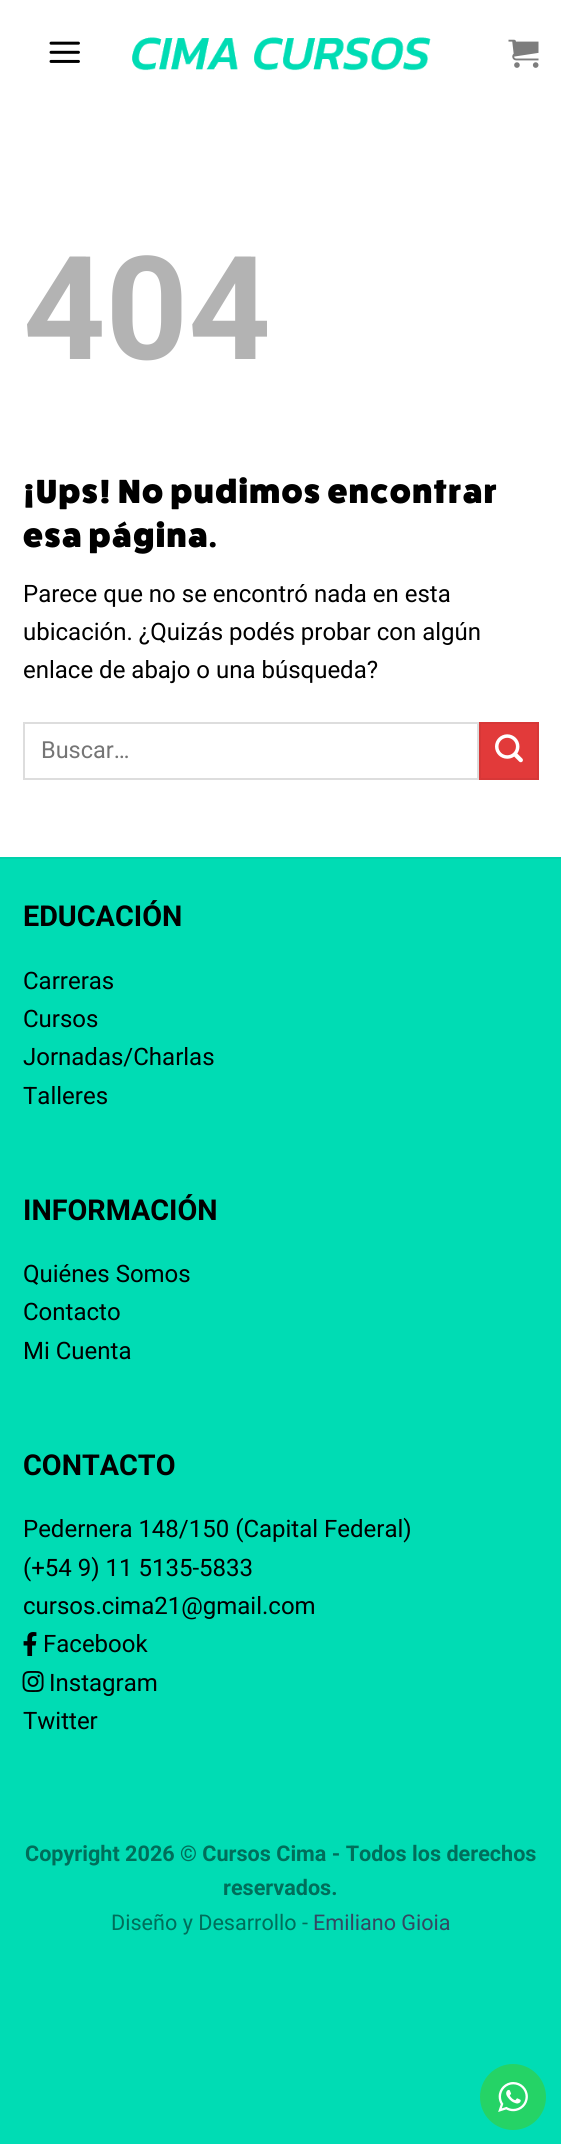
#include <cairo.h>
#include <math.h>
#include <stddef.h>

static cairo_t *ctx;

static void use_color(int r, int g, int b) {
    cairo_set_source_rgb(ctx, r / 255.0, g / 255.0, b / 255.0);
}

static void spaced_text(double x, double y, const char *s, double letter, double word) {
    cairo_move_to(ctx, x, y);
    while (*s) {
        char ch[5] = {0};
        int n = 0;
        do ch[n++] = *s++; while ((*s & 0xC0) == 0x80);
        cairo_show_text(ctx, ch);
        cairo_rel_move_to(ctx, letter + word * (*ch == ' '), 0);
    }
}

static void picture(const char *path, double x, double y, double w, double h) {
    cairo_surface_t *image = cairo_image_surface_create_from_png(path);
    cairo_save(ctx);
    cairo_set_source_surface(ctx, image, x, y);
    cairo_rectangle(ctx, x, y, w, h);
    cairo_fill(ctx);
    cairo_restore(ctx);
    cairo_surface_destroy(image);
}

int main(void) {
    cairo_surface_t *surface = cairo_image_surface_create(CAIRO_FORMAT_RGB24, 561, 2144);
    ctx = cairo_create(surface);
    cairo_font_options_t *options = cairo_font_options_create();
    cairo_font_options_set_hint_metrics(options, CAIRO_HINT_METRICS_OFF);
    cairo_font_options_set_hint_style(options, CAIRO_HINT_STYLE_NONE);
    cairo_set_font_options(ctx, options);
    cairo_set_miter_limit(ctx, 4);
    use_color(0, 220, 180);
    cairo_paint(ctx);
    use_color(255, 255, 255);
    cairo_rectangle(ctx, 0, 0, 561, 857);
    cairo_fill(ctx);
    picture("img1.png", 49, 41, 31, 22);
    picture("img2.png", 132, 37, 299, 34);
    picture("img3.png", 508, 39, 31, 29);
    cairo_select_font_face(ctx, "Roboto", CAIRO_FONT_SLANT_NORMAL, CAIRO_FONT_WEIGHT_BOLD);
    cairo_set_font_size(ctx, 144);
    use_color(179, 179, 179);
    cairo_move_to(ctx, 23, 359);
    cairo_show_text(ctx, "404");
    cairo_select_font_face(ctx, "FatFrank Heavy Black", CAIRO_FONT_SLANT_NORMAL, CAIRO_FONT_WEIGHT_NORMAL);
    cairo_set_font_size(ctx, 33.6);
    use_color(0, 0, 0);
    spaced_text(23, 503, "¡Ups! No pudimos encontrar", 1.5, 0);
    spaced_text(23, 547, "esa página.", 1.5, 0);
    cairo_select_font_face(ctx, "Roboto", CAIRO_FONT_SLANT_NORMAL, CAIRO_FONT_WEIGHT_NORMAL);
    cairo_set_font_size(ctx, 24);
    cairo_move_to(ctx, 23, 602);
    cairo_show_text(ctx, "Parece que no se encontró nada en esta");
    cairo_move_to(ctx, 23, 640);
    cairo_show_text(ctx, "ubicación. ¿Quizás podés probar con algún");
    cairo_move_to(ctx, 23, 678);
    cairo_show_text(ctx, "enlace de abajo o una búsqueda?");
    cairo_rectangle(ctx, 24, 723, 454, 56);
    use_color(221, 221, 221);
    cairo_stroke(ctx);
    cairo_set_font_size(ctx, 23.5);
    use_color(117, 117, 117);
    cairo_move_to(ctx, 41, 758);
    cairo_show_text(ctx, "Buscar…");
    use_color(226, 58, 58);
    cairo_rectangle(ctx, 480, 723, 58, 56);
    cairo_fill_preserve(ctx);
    use_color(215, 55, 55);
    cairo_stroke(ctx);
    picture("img4.png", 495, 734, 28, 29);
    use_color(0, 209, 171);
    cairo_rectangle(ctx, 0, 857, 561, 2);
    cairo_fill(ctx);
    cairo_select_font_face(ctx, "Roboto", CAIRO_FONT_SLANT_NORMAL, CAIRO_FONT_WEIGHT_BOLD);
    cairo_set_font_size(ctx, 28.75);
    use_color(0, 0, 0);
    cairo_move_to(ctx, 23, 926);
    cairo_show_text(ctx, "EDUCACIÓN");
    cairo_select_font_face(ctx, "Roboto", CAIRO_FONT_SLANT_NORMAL, CAIRO_FONT_WEIGHT_NORMAL);
    cairo_set_font_size(ctx, 24);
    cairo_move_to(ctx, 23, 989);
    cairo_show_text(ctx, "Carreras");
    cairo_move_to(ctx, 23, 1027);
    cairo_show_text(ctx, "Cursos");
    cairo_move_to(ctx, 23, 1065);
    cairo_show_text(ctx, "Jornadas/Charlas");
    cairo_move_to(ctx, 23, 1104);
    cairo_show_text(ctx, "Talleres");
    cairo_select_font_face(ctx, "Roboto", CAIRO_FONT_SLANT_NORMAL, CAIRO_FONT_WEIGHT_BOLD);
    cairo_set_font_size(ctx, 28.75);
    cairo_move_to(ctx, 23, 1220);
    cairo_show_text(ctx, "INFORMACIÓN");
    cairo_select_font_face(ctx, "Roboto", CAIRO_FONT_SLANT_NORMAL, CAIRO_FONT_WEIGHT_NORMAL);
    cairo_set_font_size(ctx, 24);
    cairo_move_to(ctx, 23, 1282);
    cairo_show_text(ctx, "Quiénes Somos");
    cairo_move_to(ctx, 23, 1320);
    cairo_show_text(ctx, "Contacto");
    cairo_move_to(ctx, 23, 1359);
    cairo_show_text(ctx, "Mi Cuenta");
    cairo_select_font_face(ctx, "Roboto", CAIRO_FONT_SLANT_NORMAL, CAIRO_FONT_WEIGHT_BOLD);
    cairo_set_font_size(ctx, 28.75);
    cairo_move_to(ctx, 23, 1475);
    cairo_show_text(ctx, "CONTACTO");
    cairo_select_font_face(ctx, "Roboto", CAIRO_FONT_SLANT_NORMAL, CAIRO_FONT_WEIGHT_NORMAL);
    cairo_set_font_size(ctx, 24);
    cairo_move_to(ctx, 23, 1537);
    cairo_show_text(ctx, "Pedernera 148/150 (Capital Federal)");
    cairo_move_to(ctx, 23, 1576);
    cairo_show_text(ctx, "(+54 9) 11 5135-5833");
    cairo_move_to(ctx, 23, 1614);
    cairo_show_text(ctx, "cursos.cima21@gmail.com");
    picture("img5.png", 23, 1632, 14, 24);
    cairo_move_to(ctx, 43, 1652);
    cairo_show_text(ctx, "Facebook");
    picture("img6.png", 22, 1671, 22, 21);
    cairo_move_to(ctx, 49, 1691);
    cairo_show_text(ctx, "Instagram");
    cairo_move_to(ctx, 23, 1729);
    cairo_show_text(ctx, "Twitter");
    cairo_select_font_face(ctx, "Roboto", CAIRO_FONT_SLANT_NORMAL, CAIRO_FONT_WEIGHT_BOLD);
    cairo_set_font_size(ctx, 21.6);
    use_color(0, 110, 90);
    cairo_move_to(ctx, 25, 1861);
    cairo_show_text(ctx, "Copyright 2026 © Cursos Cima - Todos los derechos");
    cairo_move_to(ctx, 223, 1895);
    cairo_show_text(ctx, "reservados.");
    cairo_select_font_face(ctx, "Roboto", CAIRO_FONT_SLANT_NORMAL, CAIRO_FONT_WEIGHT_NORMAL);
    cairo_move_to(ctx, 111, 1930);
    cairo_show_text(ctx, "Diseño y Desarrollo -");
    use_color(51, 72, 98);
    cairo_move_to(ctx, 313, 1930);
    cairo_show_text(ctx, "Emiliano Gioia");
    use_color(37, 211, 102);
    cairo_new_path(ctx);
    cairo_arc(ctx, 513, 2097, 33, 0, 2 * M_PI);
    cairo_fill(ctx);
    picture("img7.png", 498, 2082, 30, 30);
    cairo_surface_write_to_png(surface, "result.png");
    cairo_font_options_destroy(options);
    cairo_destroy(ctx);
    cairo_surface_destroy(surface);
    return 0;
}
